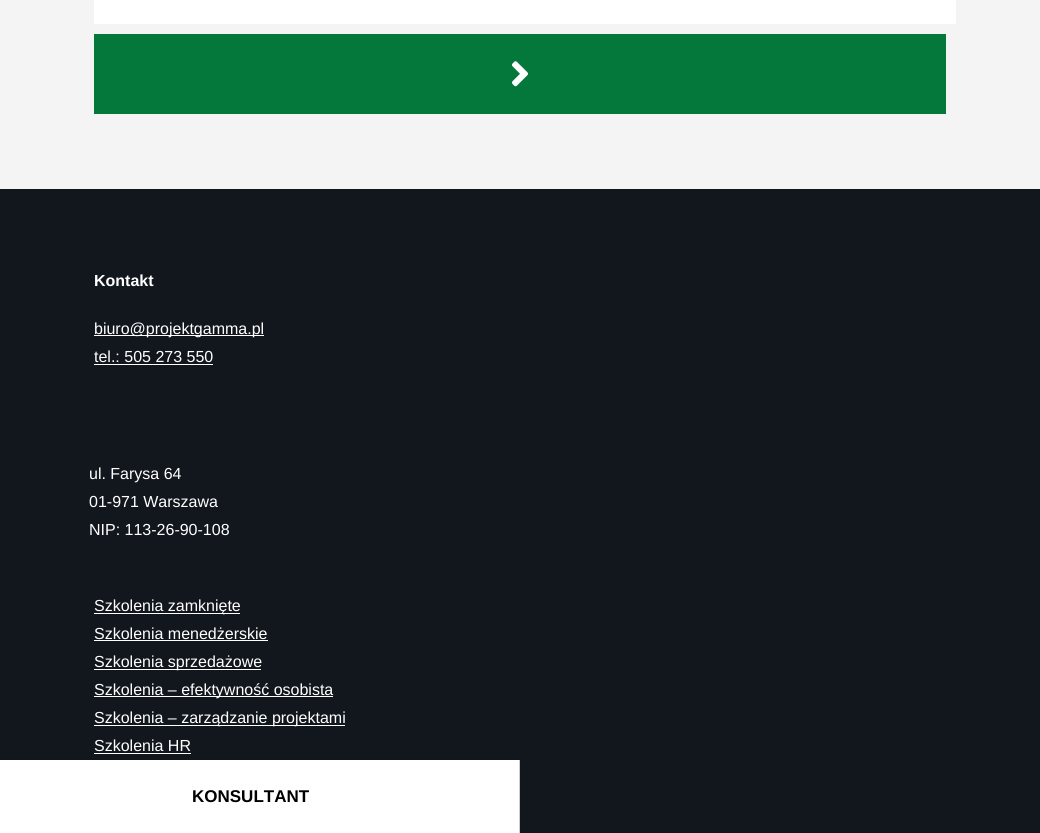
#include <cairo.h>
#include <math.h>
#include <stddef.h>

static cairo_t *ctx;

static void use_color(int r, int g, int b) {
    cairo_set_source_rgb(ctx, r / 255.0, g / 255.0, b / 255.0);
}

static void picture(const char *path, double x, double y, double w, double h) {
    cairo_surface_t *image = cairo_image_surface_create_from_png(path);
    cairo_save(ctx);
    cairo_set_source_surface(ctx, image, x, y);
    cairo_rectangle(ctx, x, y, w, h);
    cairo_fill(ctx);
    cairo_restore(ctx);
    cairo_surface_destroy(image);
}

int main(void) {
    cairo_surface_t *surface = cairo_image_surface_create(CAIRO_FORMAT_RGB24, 1040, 833);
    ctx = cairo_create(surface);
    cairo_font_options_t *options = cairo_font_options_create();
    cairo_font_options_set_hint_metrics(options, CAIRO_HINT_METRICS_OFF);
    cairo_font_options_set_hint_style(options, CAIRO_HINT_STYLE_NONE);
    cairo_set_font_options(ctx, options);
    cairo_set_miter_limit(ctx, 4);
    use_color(244, 244, 244);
    cairo_paint(ctx);
    use_color(255, 255, 255);
    cairo_rectangle(ctx, 94, 0, 862, 24);
    cairo_fill(ctx);
    use_color(4, 120, 59);
    cairo_rectangle(ctx, 94, 34, 852, 80);
    cairo_fill(ctx);
    picture("img1.png", 512, 61, 16, 26);
    use_color(18, 23, 30);
    cairo_rectangle(ctx, 0, 189, 1040, 644);
    cairo_fill(ctx);
    cairo_select_font_face(ctx, "Liberation Sans", CAIRO_FONT_SLANT_NORMAL, CAIRO_FONT_WEIGHT_BOLD);
    cairo_set_font_size(ctx, 16);
    use_color(255, 255, 255);
    cairo_move_to(ctx, 94, 286);
    cairo_show_text(ctx, "Kontakt");
    cairo_rectangle(ctx, 94, 335, 170, 1);
    cairo_fill(ctx);
    cairo_select_font_face(ctx, "Liberation Sans", CAIRO_FONT_SLANT_NORMAL, CAIRO_FONT_WEIGHT_NORMAL);
    cairo_move_to(ctx, 94, 334);
    cairo_show_text(ctx, "biuro@projektgamma.pl");
    cairo_move_to(ctx, 94, 362);
    cairo_show_text(ctx, "tel.: 505 273 550");
    cairo_rectangle(ctx, 94, 364, 119, 1);
    cairo_fill(ctx);
    cairo_move_to(ctx, 89, 479);
    cairo_show_text(ctx, "ul. Farysa 64");
    cairo_move_to(ctx, 89, 507);
    cairo_show_text(ctx, "01-971 Warszawa");
    cairo_move_to(ctx, 89, 535);
    cairo_show_text(ctx, "NIP: 113-26-90-108");
    cairo_rectangle(ctx, 94, 613, 146, 1);
    cairo_fill(ctx);
    cairo_move_to(ctx, 94, 611);
    cairo_show_text(ctx, "Szkolenia zamknięte");
    cairo_move_to(ctx, 94, 639);
    cairo_show_text(ctx, "Szkolenia menedżerskie");
    cairo_rectangle(ctx, 94, 640, 174, 1);
    cairo_fill(ctx);
    cairo_rectangle(ctx, 94, 669, 167, 1);
    cairo_fill(ctx);
    cairo_move_to(ctx, 94, 667);
    cairo_show_text(ctx, "Szkolenia sprzedażowe");
    cairo_rectangle(ctx, 94, 696, 239, 1);
    cairo_fill(ctx);
    cairo_move_to(ctx, 94, 695);
    cairo_show_text(ctx, "Szkolenia – efektywność osobista");
    cairo_rectangle(ctx, 94, 725, 251, 1);
    cairo_fill(ctx);
    cairo_move_to(ctx, 94, 723);
    cairo_show_text(ctx, "Szkolenia – zarządzanie projektami");
    cairo_move_to(ctx, 94, 751);
    cairo_show_text(ctx, "Szkolenia HR");
    cairo_rectangle(ctx, 94, 753, 97, 1);
    cairo_fill(ctx);
    use_color(205, 205, 205);
    cairo_rectangle(ctx, 519, 760, 1, 73);
    cairo_fill(ctx);
    use_color(255, 255, 255);
    cairo_rectangle(ctx, 0, 760, 519, 73);
    cairo_fill(ctx);
    cairo_select_font_face(ctx, "Liberation Sans", CAIRO_FONT_SLANT_NORMAL, CAIRO_FONT_WEIGHT_BOLD);
    cairo_set_font_size(ctx, 17);
    use_color(0, 0, 0);
    cairo_move_to(ctx, 192, 802);
    cairo_show_text(ctx, "KONSULTANT");
    cairo_surface_write_to_png(surface, "result.png");
    cairo_font_options_destroy(options);
    cairo_destroy(ctx);
    cairo_surface_destroy(surface);
    return 0;
}
